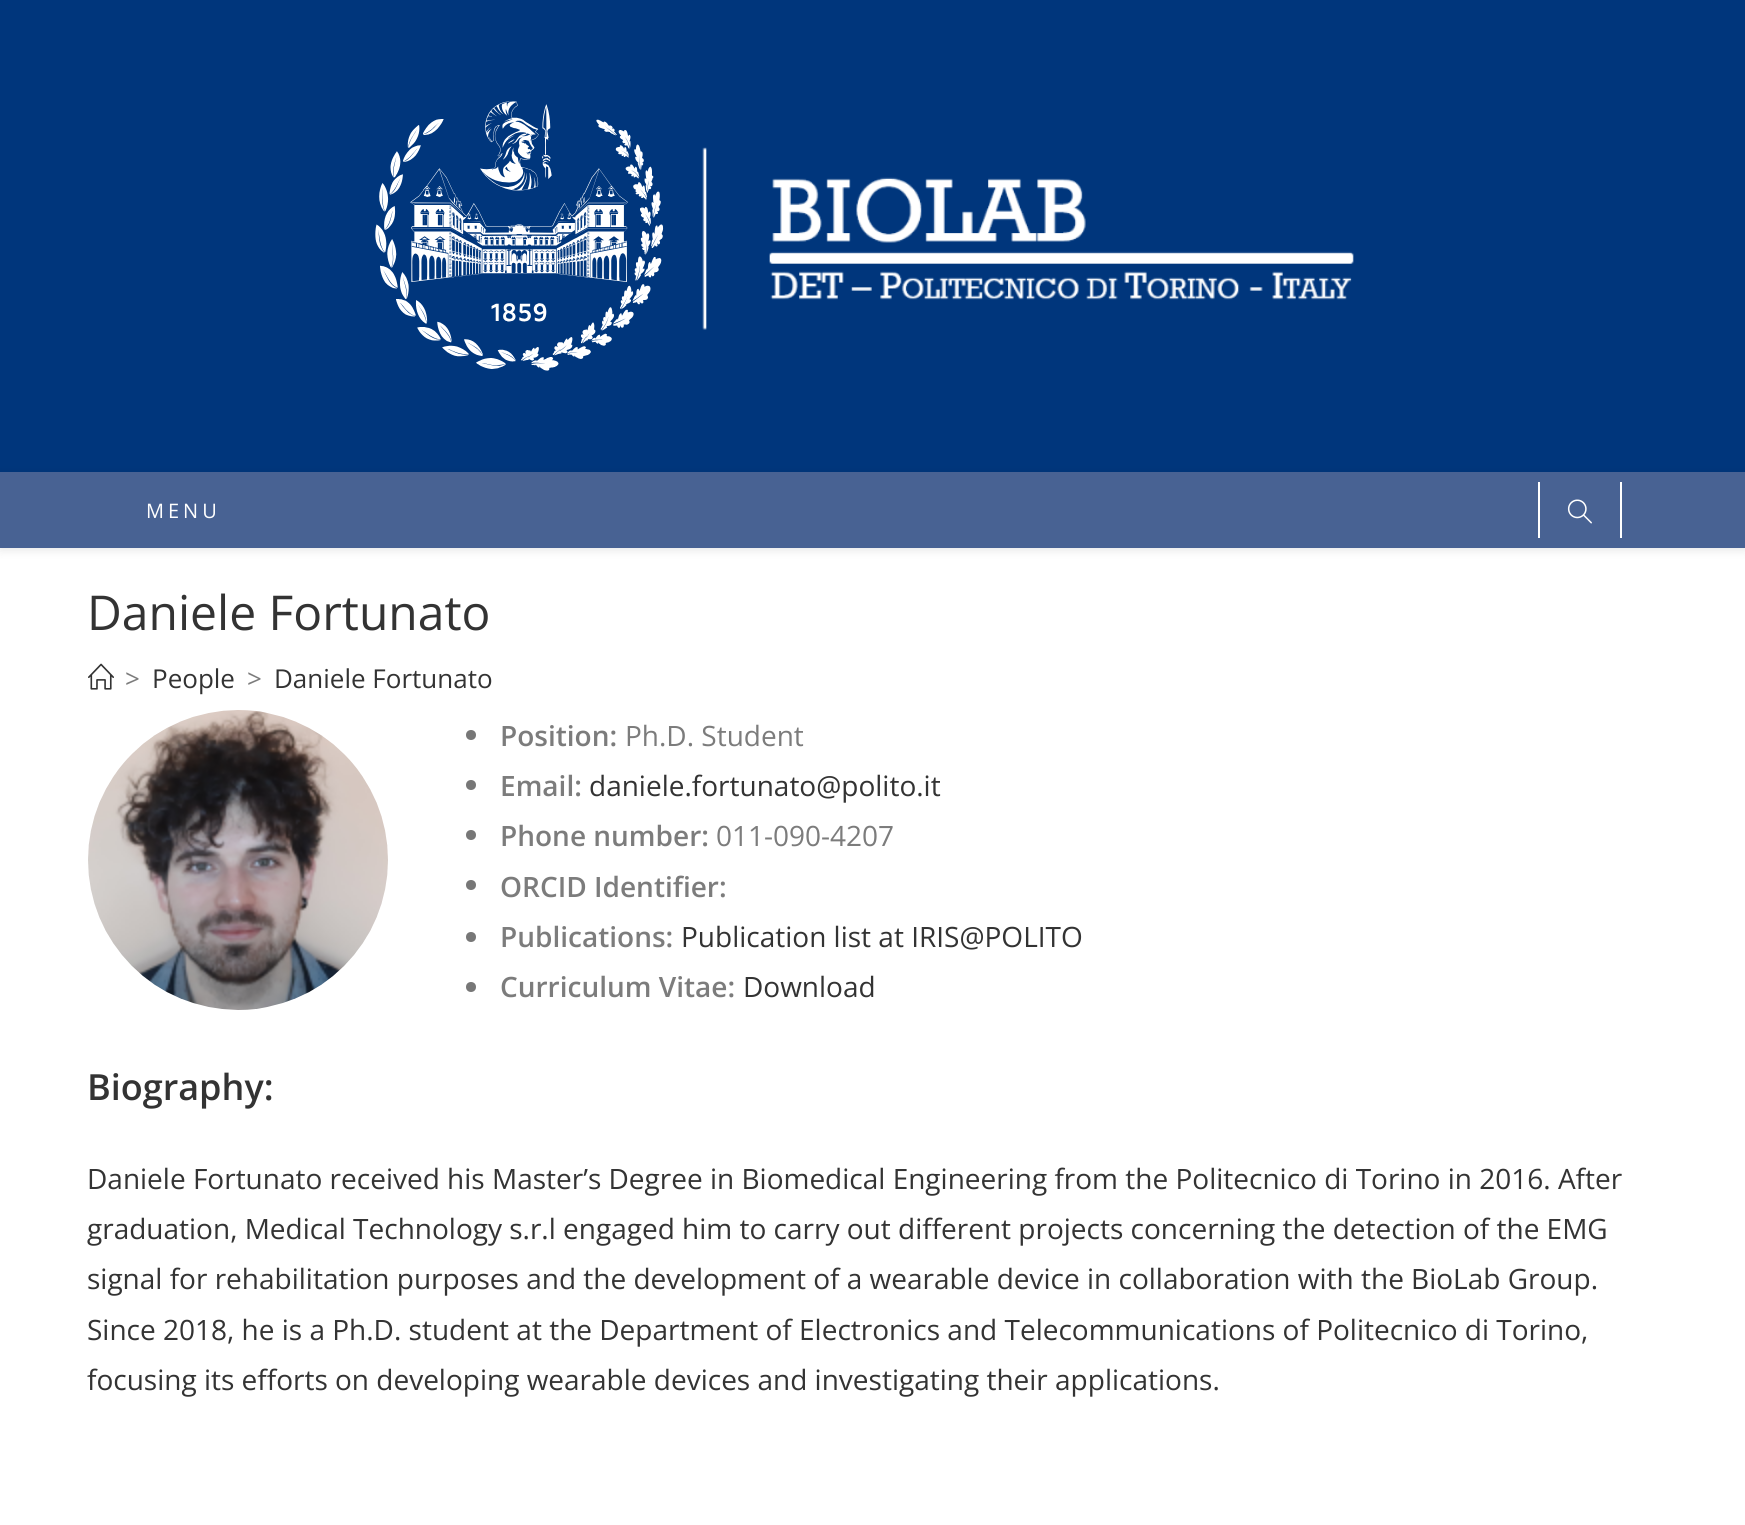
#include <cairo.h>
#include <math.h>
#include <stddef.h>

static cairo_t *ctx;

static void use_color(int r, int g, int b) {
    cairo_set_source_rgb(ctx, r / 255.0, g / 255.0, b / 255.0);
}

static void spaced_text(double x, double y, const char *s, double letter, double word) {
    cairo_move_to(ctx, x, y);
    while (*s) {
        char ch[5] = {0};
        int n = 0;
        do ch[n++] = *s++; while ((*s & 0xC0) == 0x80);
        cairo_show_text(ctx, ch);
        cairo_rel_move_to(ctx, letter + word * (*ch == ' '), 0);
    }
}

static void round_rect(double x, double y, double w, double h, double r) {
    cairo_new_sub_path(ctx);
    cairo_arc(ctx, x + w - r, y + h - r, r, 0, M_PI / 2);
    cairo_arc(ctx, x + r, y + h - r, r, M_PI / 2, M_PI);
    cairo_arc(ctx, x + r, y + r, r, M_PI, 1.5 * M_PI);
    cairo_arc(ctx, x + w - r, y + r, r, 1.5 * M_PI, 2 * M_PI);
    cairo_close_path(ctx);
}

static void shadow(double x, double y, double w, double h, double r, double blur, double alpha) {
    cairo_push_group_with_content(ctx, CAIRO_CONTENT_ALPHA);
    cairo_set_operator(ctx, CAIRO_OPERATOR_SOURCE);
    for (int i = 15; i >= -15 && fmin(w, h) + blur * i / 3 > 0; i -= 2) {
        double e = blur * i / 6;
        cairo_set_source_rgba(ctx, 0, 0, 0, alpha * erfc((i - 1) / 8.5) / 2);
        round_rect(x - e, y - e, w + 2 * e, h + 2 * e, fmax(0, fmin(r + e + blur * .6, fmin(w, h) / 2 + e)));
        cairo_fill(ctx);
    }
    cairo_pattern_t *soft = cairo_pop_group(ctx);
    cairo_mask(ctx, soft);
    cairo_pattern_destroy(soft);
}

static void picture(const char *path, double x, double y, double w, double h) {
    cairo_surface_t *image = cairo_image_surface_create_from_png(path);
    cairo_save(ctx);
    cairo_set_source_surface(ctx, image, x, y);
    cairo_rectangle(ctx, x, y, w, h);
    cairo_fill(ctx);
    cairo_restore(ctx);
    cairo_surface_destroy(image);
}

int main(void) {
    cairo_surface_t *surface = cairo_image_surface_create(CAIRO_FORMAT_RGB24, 1745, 1525);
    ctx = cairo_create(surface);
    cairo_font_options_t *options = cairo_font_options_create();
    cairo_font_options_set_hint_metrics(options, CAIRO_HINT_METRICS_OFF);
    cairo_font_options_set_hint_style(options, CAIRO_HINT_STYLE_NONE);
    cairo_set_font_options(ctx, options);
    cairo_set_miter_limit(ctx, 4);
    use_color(255, 255, 255);
    cairo_paint(ctx);
    use_color(0, 54, 124);
    cairo_rectangle(ctx, 0, 0, 1745, 472);
    cairo_fill(ctx);
    picture("img1.png", 375, 101, 979, 270);
    use_color(0, 0, 0);
    shadow(0, 474, 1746, 76, 0, 5, 0.1);
    use_color(72, 98, 147);
    cairo_rectangle(ctx, 0, 472, 1745, 76);
    cairo_fill(ctx);
    cairo_select_font_face(ctx, "Open Sans", CAIRO_FONT_SLANT_NORMAL, CAIRO_FONT_WEIGHT_NORMAL);
    cairo_set_font_size(ctx, 20);
    use_color(255, 255, 255);
    spaced_text(146, 518, "MENU", 4, 0);
    cairo_rectangle(ctx, 1620, 482, 2, 56);
    cairo_fill(ctx);
    cairo_rectangle(ctx, 1538, 482, 2, 56);
    cairo_fill(ctx);
    picture("img2.png", 1567, 499, 25, 25);
    cairo_set_font_size(ctx, 48);
    use_color(51, 51, 51);
    cairo_move_to(ctx, 87, 630);
    cairo_show_text(ctx, "Daniele Fortunato");
    picture("img3.png", 88, 663, 26, 27);
    cairo_set_font_size(ctx, 26);
    use_color(124, 124, 124);
    cairo_move_to(ctx, 125, 688);
    cairo_show_text(ctx, ">");
    use_color(51, 51, 51);
    cairo_move_to(ctx, 152, 688);
    cairo_show_text(ctx, "People");
    use_color(124, 124, 124);
    cairo_move_to(ctx, 247, 688);
    cairo_show_text(ctx, ">");
    use_color(51, 51, 51);
    cairo_move_to(ctx, 274, 688);
    cairo_show_text(ctx, "Daniele Fortunato");
    picture("img4.png", 88, 710, 300, 300);
    use_color(119, 119, 119);
    cairo_arc(ctx, 471, 735, 5, 0, 2 * M_PI);
    cairo_fill(ctx);
    cairo_select_font_face(ctx, "Open Sans SemiBold", CAIRO_FONT_SLANT_NORMAL, CAIRO_FONT_WEIGHT_NORMAL);
    cairo_set_font_size(ctx, 28);
    use_color(124, 124, 124);
    cairo_move_to(ctx, 500, 746);
    cairo_show_text(ctx, "Position:");
    cairo_select_font_face(ctx, "Open Sans", CAIRO_FONT_SLANT_NORMAL, CAIRO_FONT_WEIGHT_NORMAL);
    cairo_move_to(ctx, 625, 746);
    cairo_show_text(ctx, "Ph.D. Student");
    use_color(119, 119, 119);
    cairo_new_path(ctx);
    cairo_arc(ctx, 471, 785, 5, 0, 2 * M_PI);
    cairo_fill(ctx);
    cairo_select_font_face(ctx, "Open Sans SemiBold", CAIRO_FONT_SLANT_NORMAL, CAIRO_FONT_WEIGHT_NORMAL);
    use_color(124, 124, 124);
    cairo_move_to(ctx, 500, 796);
    cairo_show_text(ctx, "Email:");
    cairo_select_font_face(ctx, "Open Sans", CAIRO_FONT_SLANT_NORMAL, CAIRO_FONT_WEIGHT_NORMAL);
    use_color(51, 51, 51);
    cairo_move_to(ctx, 589, 796);
    cairo_show_text(ctx, "daniele.fortunato@polito.it");
    use_color(119, 119, 119);
    cairo_new_path(ctx);
    cairo_arc(ctx, 471, 835, 5, 0, 2 * M_PI);
    cairo_fill(ctx);
    cairo_select_font_face(ctx, "Open Sans SemiBold", CAIRO_FONT_SLANT_NORMAL, CAIRO_FONT_WEIGHT_NORMAL);
    use_color(124, 124, 124);
    cairo_move_to(ctx, 500, 846);
    cairo_show_text(ctx, "Phone number:");
    cairo_select_font_face(ctx, "Open Sans", CAIRO_FONT_SLANT_NORMAL, CAIRO_FONT_WEIGHT_NORMAL);
    cairo_move_to(ctx, 716, 846);
    cairo_show_text(ctx, "011-090-4207");
    use_color(119, 119, 119);
    cairo_new_path(ctx);
    cairo_arc(ctx, 471, 885, 5, 0, 2 * M_PI);
    cairo_fill(ctx);
    cairo_select_font_face(ctx, "Open Sans SemiBold", CAIRO_FONT_SLANT_NORMAL, CAIRO_FONT_WEIGHT_NORMAL);
    use_color(124, 124, 124);
    cairo_move_to(ctx, 500, 897);
    cairo_show_text(ctx, "ORCID Identifier:");
    use_color(119, 119, 119);
    cairo_new_path(ctx);
    cairo_arc(ctx, 471, 937, 5, 0, 2 * M_PI);
    cairo_fill(ctx);
    use_color(124, 124, 124);
    cairo_move_to(ctx, 500, 947);
    cairo_show_text(ctx, "Publications:");
    cairo_select_font_face(ctx, "Open Sans", CAIRO_FONT_SLANT_NORMAL, CAIRO_FONT_WEIGHT_NORMAL);
    use_color(51, 51, 51);
    cairo_move_to(ctx, 681, 947);
    cairo_show_text(ctx, "Publication list at IRIS@POLITO");
    use_color(119, 119, 119);
    cairo_new_path(ctx);
    cairo_arc(ctx, 471, 987, 5, 0, 2 * M_PI);
    cairo_fill(ctx);
    cairo_select_font_face(ctx, "Open Sans SemiBold", CAIRO_FONT_SLANT_NORMAL, CAIRO_FONT_WEIGHT_NORMAL);
    use_color(124, 124, 124);
    cairo_move_to(ctx, 500, 997);
    cairo_show_text(ctx, "Curriculum Vitae:");
    cairo_select_font_face(ctx, "Open Sans", CAIRO_FONT_SLANT_NORMAL, CAIRO_FONT_WEIGHT_NORMAL);
    use_color(51, 51, 51);
    cairo_move_to(ctx, 743, 997);
    cairo_show_text(ctx, "Download");
    cairo_select_font_face(ctx, "Open Sans SemiBold", CAIRO_FONT_SLANT_NORMAL, CAIRO_FONT_WEIGHT_NORMAL);
    cairo_set_font_size(ctx, 36);
    cairo_move_to(ctx, 87, 1100);
    cairo_show_text(ctx, "Biography:");
    cairo_select_font_face(ctx, "Open Sans", CAIRO_FONT_SLANT_NORMAL, CAIRO_FONT_WEIGHT_NORMAL);
    cairo_set_font_size(ctx, 28);
    cairo_move_to(ctx, 87, 1189);
    cairo_show_text(ctx, "Daniele Fortunato received his Master’s Degree in Biomedical Engineering from the Politecnico di Torino in 2016. After");
    cairo_move_to(ctx, 87, 1239);
    cairo_show_text(ctx, "graduation, Medical Technology s.r.l engaged him to carry out different projects concerning the detection of the EMG");
    cairo_move_to(ctx, 87, 1289);
    cairo_show_text(ctx, "signal for rehabilitation purposes and the development of a wearable device in collaboration with the BioLab Group.");
    cairo_move_to(ctx, 87, 1340);
    cairo_show_text(ctx, "Since 2018, he is a Ph.D. student at the Department of Electronics and Telecommunications of Politecnico di Torino,");
    cairo_move_to(ctx, 87, 1390);
    cairo_show_text(ctx, "focusing its efforts on developing wearable devices and investigating their applications.");
    cairo_surface_write_to_png(surface, "result.png");
    cairo_font_options_destroy(options);
    cairo_destroy(ctx);
    cairo_surface_destroy(surface);
    return 0;
}
